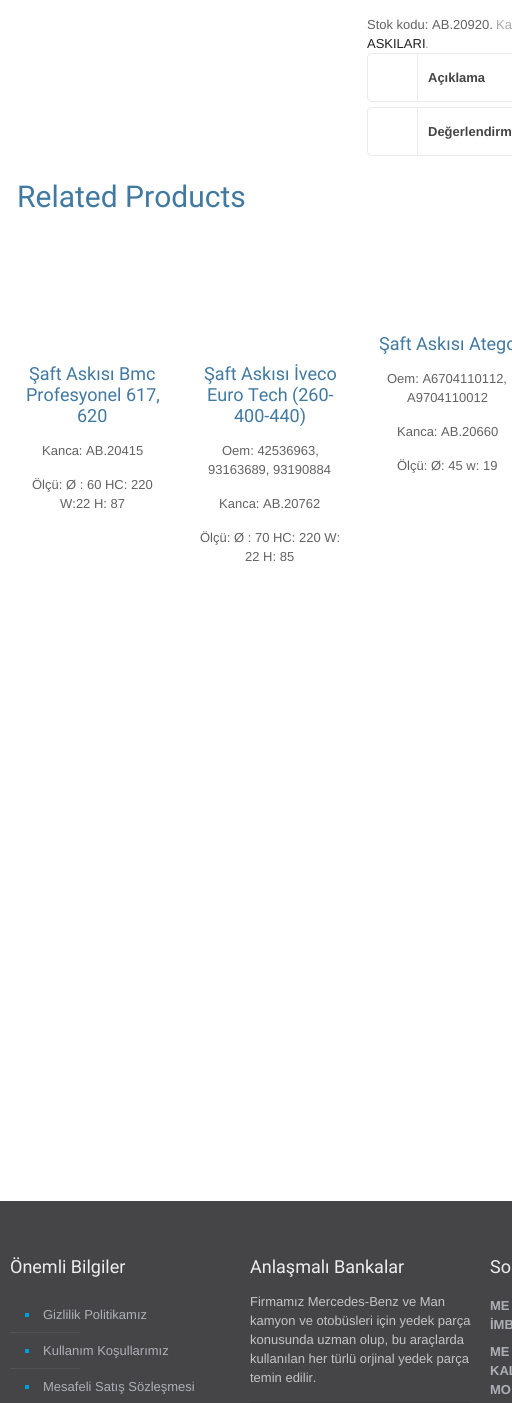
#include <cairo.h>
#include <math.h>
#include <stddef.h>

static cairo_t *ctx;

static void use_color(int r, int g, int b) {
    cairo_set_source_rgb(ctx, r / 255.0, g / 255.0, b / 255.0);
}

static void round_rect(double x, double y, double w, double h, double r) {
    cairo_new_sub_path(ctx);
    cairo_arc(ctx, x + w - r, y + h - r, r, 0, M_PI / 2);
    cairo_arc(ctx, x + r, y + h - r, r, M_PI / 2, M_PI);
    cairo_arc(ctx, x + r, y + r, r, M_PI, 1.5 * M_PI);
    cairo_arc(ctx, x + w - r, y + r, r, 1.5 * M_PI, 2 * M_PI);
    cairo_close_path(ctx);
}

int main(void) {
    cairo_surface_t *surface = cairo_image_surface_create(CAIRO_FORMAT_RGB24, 512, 1403);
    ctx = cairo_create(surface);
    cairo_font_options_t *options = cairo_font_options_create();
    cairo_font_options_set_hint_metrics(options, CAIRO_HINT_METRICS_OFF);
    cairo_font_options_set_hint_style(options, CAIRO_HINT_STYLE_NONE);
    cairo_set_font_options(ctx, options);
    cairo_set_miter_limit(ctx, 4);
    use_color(255, 255, 255);
    cairo_paint(ctx);
    cairo_select_font_face(ctx, "Liberation Sans", CAIRO_FONT_SLANT_NORMAL, CAIRO_FONT_WEIGHT_NORMAL);
    cairo_set_font_size(ctx, 13);
    use_color(98, 98, 98);
    cairo_move_to(ctx, 367, 29);
    cairo_show_text(ctx, "Stok kodu: AB.20920.");
    use_color(168, 168, 168);
    cairo_move_to(ctx, 496, 29);
    cairo_show_text(ctx, "Ka");
    use_color(33, 33, 33);
    cairo_move_to(ctx, 367, 48);
    cairo_show_text(ctx, "ASKILARI");
    use_color(168, 168, 168);
    cairo_move_to(ctx, 425, 48);
    cairo_show_text(ctx, ".");
    round_rect(367.5, 53.5, 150, 48, 4.5);
    use_color(235, 235, 235);
    cairo_set_line_width(ctx, 1);
    cairo_stroke(ctx);
    cairo_rectangle(ctx, 417, 54, 1, 47);
    cairo_fill(ctx);
    cairo_select_font_face(ctx, "Liberation Sans", CAIRO_FONT_SLANT_NORMAL, CAIRO_FONT_WEIGHT_BOLD);
    use_color(68, 68, 68);
    cairo_move_to(ctx, 428, 82);
    cairo_show_text(ctx, "Açıklama");
    round_rect(367.5, 107.5, 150, 48, 4.5);
    use_color(235, 235, 235);
    cairo_stroke(ctx);
    cairo_rectangle(ctx, 417, 108, 1, 47);
    cairo_fill(ctx);
    use_color(68, 68, 68);
    cairo_move_to(ctx, 428, 136);
    cairo_show_text(ctx, "Değerlendirm");
    cairo_select_font_face(ctx, "Roboto", CAIRO_FONT_SLANT_NORMAL, CAIRO_FONT_WEIGHT_NORMAL);
    cairo_set_font_size(ctx, 30);
    use_color(65, 121, 160);
    cairo_move_to(ctx, 17, 207);
    cairo_show_text(ctx, "Related Products");
    cairo_set_font_size(ctx, 18);
    cairo_move_to(ctx, 29, 380);
    cairo_show_text(ctx, "Şaft Askısı Bmc");
    cairo_move_to(ctx, 26, 401);
    cairo_show_text(ctx, "Profesyonel 617,");
    cairo_move_to(ctx, 77, 422);
    cairo_show_text(ctx, "620");
    cairo_select_font_face(ctx, "Liberation Sans", CAIRO_FONT_SLANT_NORMAL, CAIRO_FONT_WEIGHT_NORMAL);
    cairo_set_font_size(ctx, 13);
    use_color(98, 98, 98);
    cairo_move_to(ctx, 42, 455);
    cairo_show_text(ctx, "Kanca: AB.20415");
    cairo_move_to(ctx, 32, 489);
    cairo_show_text(ctx, "Ölçü: Ø : 60 HC: 220");
    cairo_move_to(ctx, 60, 508);
    cairo_show_text(ctx, "W:22 H: 87");
    cairo_select_font_face(ctx, "Roboto", CAIRO_FONT_SLANT_NORMAL, CAIRO_FONT_WEIGHT_NORMAL);
    cairo_set_font_size(ctx, 18);
    use_color(65, 121, 160);
    cairo_move_to(ctx, 204, 380);
    cairo_show_text(ctx, "Şaft Askısı İveco");
    cairo_move_to(ctx, 207, 401);
    cairo_show_text(ctx, "Euro Tech (260-");
    cairo_move_to(ctx, 234, 422);
    cairo_show_text(ctx, "400-440)");
    cairo_select_font_face(ctx, "Liberation Sans", CAIRO_FONT_SLANT_NORMAL, CAIRO_FONT_WEIGHT_NORMAL);
    cairo_set_font_size(ctx, 13);
    use_color(98, 98, 98);
    cairo_move_to(ctx, 222, 455);
    cairo_show_text(ctx, "Oem: 42536963,");
    cairo_move_to(ctx, 208, 474);
    cairo_show_text(ctx, "93163689, 93190884");
    cairo_move_to(ctx, 219, 508);
    cairo_show_text(ctx, "Kanca: AB.20762");
    cairo_move_to(ctx, 200, 542);
    cairo_show_text(ctx, "Ölçü: Ø : 70 HC: 220 W:");
    cairo_move_to(ctx, 245, 561);
    cairo_show_text(ctx, "22 H: 85");
    cairo_select_font_face(ctx, "Roboto", CAIRO_FONT_SLANT_NORMAL, CAIRO_FONT_WEIGHT_NORMAL);
    cairo_set_font_size(ctx, 18);
    use_color(65, 121, 160);
    cairo_move_to(ctx, 379, 350);
    cairo_show_text(ctx, "Şaft Askısı Atego");
    cairo_select_font_face(ctx, "Liberation Sans", CAIRO_FONT_SLANT_NORMAL, CAIRO_FONT_WEIGHT_NORMAL);
    cairo_set_font_size(ctx, 13);
    use_color(98, 98, 98);
    cairo_move_to(ctx, 387, 383);
    cairo_show_text(ctx, "Oem: A6704110112,");
    cairo_move_to(ctx, 407, 402);
    cairo_show_text(ctx, "A9704110012");
    cairo_move_to(ctx, 397, 436);
    cairo_show_text(ctx, "Kanca: AB.20660");
    cairo_move_to(ctx, 397, 470);
    cairo_show_text(ctx, "Ölçü: Ø: 45 w: 19");
    use_color(69, 69, 72);
    cairo_rectangle(ctx, 0, 1201, 512, 202);
    cairo_fill(ctx);
    cairo_select_font_face(ctx, "Roboto", CAIRO_FONT_SLANT_NORMAL, CAIRO_FONT_WEIGHT_NORMAL);
    cairo_set_font_size(ctx, 18);
    use_color(237, 237, 237);
    cairo_move_to(ctx, 10, 1273);
    cairo_show_text(ctx, "Önemli Bilgiler");
    use_color(0, 156, 220);
    cairo_rectangle(ctx, 25, 1313, 4, 4);
    cairo_fill(ctx);
    cairo_select_font_face(ctx, "Liberation Sans", CAIRO_FONT_SLANT_NORMAL, CAIRO_FONT_WEIGHT_NORMAL);
    cairo_set_font_size(ctx, 13);
    use_color(172, 175, 181);
    cairo_move_to(ctx, 43, 1319);
    cairo_show_text(ctx, "Gizlilik Politikamız");
    use_color(82, 82, 85);
    cairo_rectangle(ctx, 10, 1332, 70, 1);
    cairo_fill(ctx);
    use_color(0, 156, 220);
    cairo_rectangle(ctx, 25, 1349, 4, 4);
    cairo_fill(ctx);
    use_color(172, 175, 181);
    cairo_move_to(ctx, 43, 1355);
    cairo_show_text(ctx, "Kullanım Koşullarımız");
    use_color(82, 82, 85);
    cairo_rectangle(ctx, 10, 1368, 70, 1);
    cairo_fill(ctx);
    use_color(0, 156, 220);
    cairo_rectangle(ctx, 25, 1385, 4, 4);
    cairo_fill(ctx);
    use_color(172, 175, 181);
    cairo_move_to(ctx, 43, 1391);
    cairo_show_text(ctx, "Mesafeli Satış Sözleşmesi");
    cairo_select_font_face(ctx, "Roboto", CAIRO_FONT_SLANT_NORMAL, CAIRO_FONT_WEIGHT_NORMAL);
    cairo_set_font_size(ctx, 18);
    use_color(237, 237, 237);
    cairo_move_to(ctx, 250, 1273);
    cairo_show_text(ctx, "Anlaşmalı Bankalar");
    cairo_select_font_face(ctx, "Liberation Sans", CAIRO_FONT_SLANT_NORMAL, CAIRO_FONT_WEIGHT_NORMAL);
    cairo_set_font_size(ctx, 13);
    use_color(196, 196, 196);
    cairo_move_to(ctx, 250, 1306);
    cairo_show_text(ctx, "Firmamız Mercedes-Benz ve Man");
    cairo_move_to(ctx, 250, 1325);
    cairo_show_text(ctx, "kamyon ve otobüsleri için yedek parça");
    cairo_move_to(ctx, 250, 1344);
    cairo_show_text(ctx, "konusunda uzman olup, bu araçlarda");
    cairo_move_to(ctx, 250, 1363);
    cairo_show_text(ctx, "kullanılan her türlü orjinal yedek parça");
    cairo_move_to(ctx, 250, 1382);
    cairo_show_text(ctx, "temin edilir.");
    use_color(63, 63, 66);
    cairo_rectangle(ctx, 250, 1402, 220, 1);
    cairo_fill(ctx);
    cairo_select_font_face(ctx, "Roboto", CAIRO_FONT_SLANT_NORMAL, CAIRO_FONT_WEIGHT_NORMAL);
    cairo_set_font_size(ctx, 18);
    use_color(237, 237, 237);
    cairo_move_to(ctx, 490, 1273);
    cairo_show_text(ctx, "So");
    cairo_select_font_face(ctx, "Liberation Sans", CAIRO_FONT_SLANT_NORMAL, CAIRO_FONT_WEIGHT_BOLD);
    cairo_set_font_size(ctx, 13);
    use_color(172, 175, 181);
    cairo_move_to(ctx, 490, 1310);
    cairo_show_text(ctx, "ME");
    cairo_move_to(ctx, 490, 1329);
    cairo_show_text(ctx, "İMB");
    cairo_move_to(ctx, 490, 1356);
    cairo_show_text(ctx, "ME");
    cairo_move_to(ctx, 490, 1375);
    cairo_show_text(ctx, "KAL");
    cairo_move_to(ctx, 490, 1394);
    cairo_show_text(ctx, "MO");
    cairo_surface_write_to_png(surface, "result.png");
    cairo_font_options_destroy(options);
    cairo_destroy(ctx);
    cairo_surface_destroy(surface);
    return 0;
}
